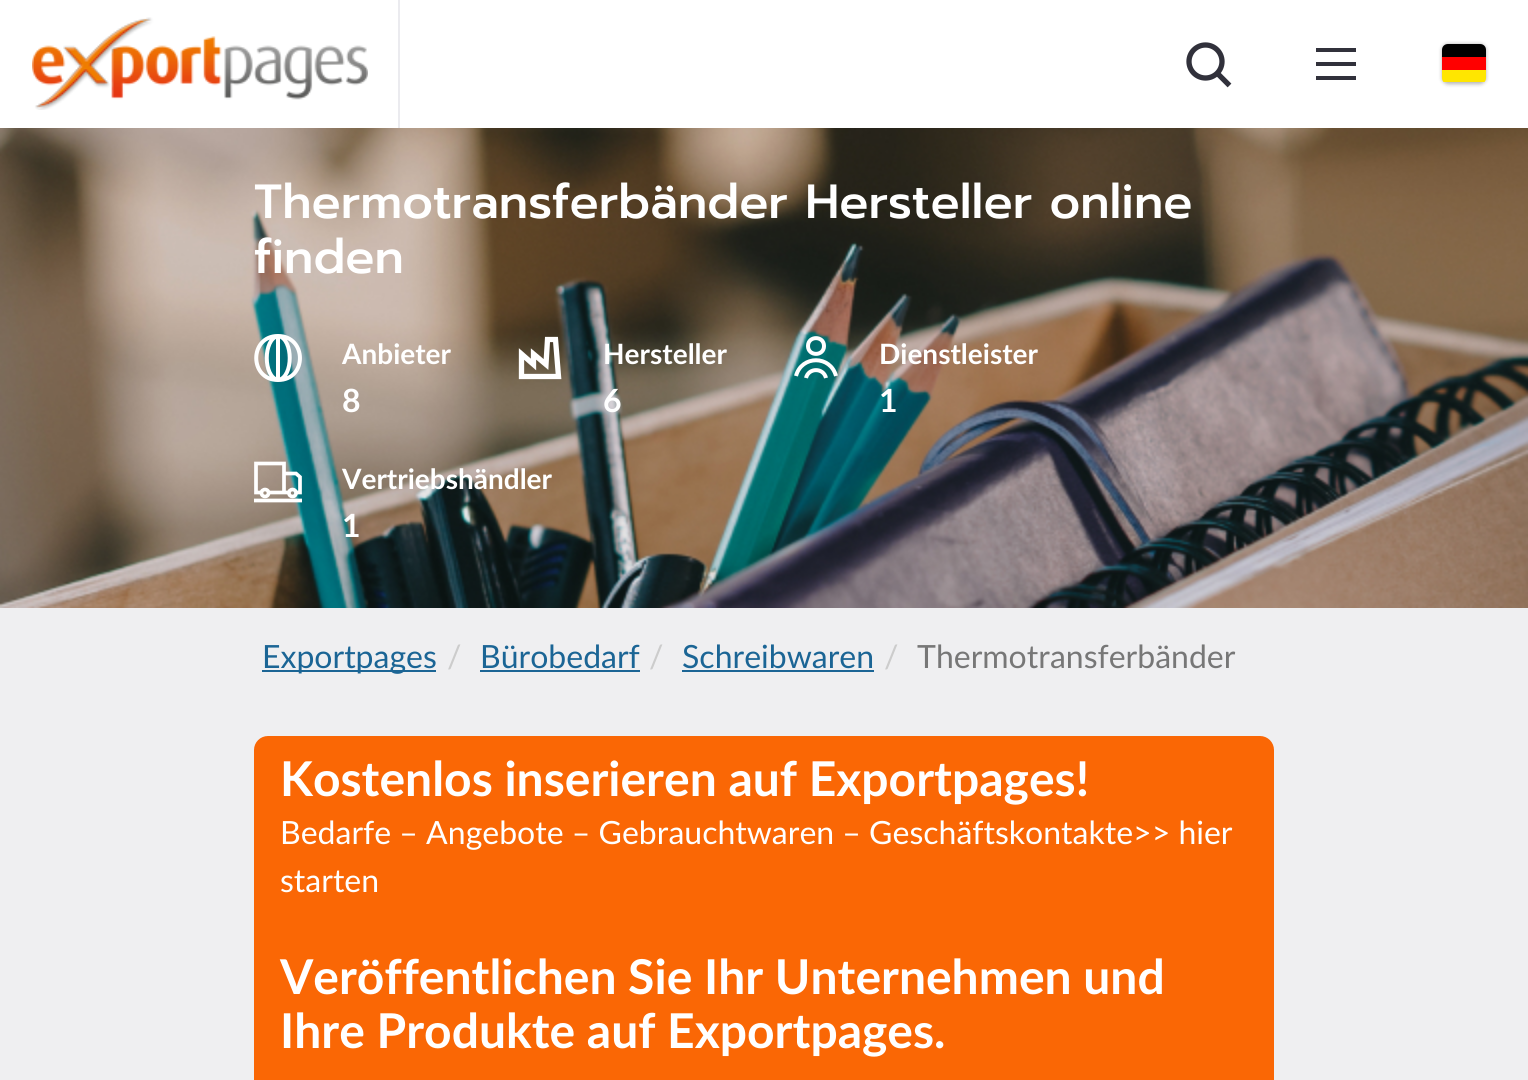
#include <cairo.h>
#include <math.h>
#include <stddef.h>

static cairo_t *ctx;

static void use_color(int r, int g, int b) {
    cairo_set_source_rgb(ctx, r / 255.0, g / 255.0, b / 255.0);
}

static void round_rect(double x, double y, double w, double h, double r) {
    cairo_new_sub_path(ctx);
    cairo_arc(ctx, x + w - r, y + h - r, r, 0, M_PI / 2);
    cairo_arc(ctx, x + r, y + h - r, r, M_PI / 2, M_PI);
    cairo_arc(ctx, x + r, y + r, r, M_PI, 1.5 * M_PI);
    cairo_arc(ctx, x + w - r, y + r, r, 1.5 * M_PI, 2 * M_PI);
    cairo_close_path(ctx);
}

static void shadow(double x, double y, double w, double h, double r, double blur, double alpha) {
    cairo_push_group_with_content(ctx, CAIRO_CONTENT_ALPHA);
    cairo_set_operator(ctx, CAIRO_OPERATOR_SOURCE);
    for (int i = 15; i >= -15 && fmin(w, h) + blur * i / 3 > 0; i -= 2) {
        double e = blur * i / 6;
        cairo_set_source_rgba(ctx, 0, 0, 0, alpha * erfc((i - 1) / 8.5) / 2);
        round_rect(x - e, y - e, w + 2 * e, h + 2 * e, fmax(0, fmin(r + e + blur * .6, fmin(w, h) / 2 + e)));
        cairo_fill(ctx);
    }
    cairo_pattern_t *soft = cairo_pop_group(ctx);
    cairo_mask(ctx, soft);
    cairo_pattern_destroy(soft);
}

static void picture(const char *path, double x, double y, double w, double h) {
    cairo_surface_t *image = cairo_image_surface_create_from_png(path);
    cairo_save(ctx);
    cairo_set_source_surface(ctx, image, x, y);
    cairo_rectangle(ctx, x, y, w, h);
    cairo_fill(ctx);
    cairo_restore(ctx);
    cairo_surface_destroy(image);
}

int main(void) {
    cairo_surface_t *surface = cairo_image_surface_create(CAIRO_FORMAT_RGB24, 1528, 1080);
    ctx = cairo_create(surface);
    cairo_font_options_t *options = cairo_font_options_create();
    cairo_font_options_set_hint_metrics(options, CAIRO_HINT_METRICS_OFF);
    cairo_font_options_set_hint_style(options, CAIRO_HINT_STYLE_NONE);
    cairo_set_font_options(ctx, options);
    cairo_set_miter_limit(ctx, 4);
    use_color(255, 255, 255);
    cairo_paint(ctx);
    picture("img1.png", 32, 17, 336, 93);
    use_color(235, 235, 239);
    cairo_rectangle(ctx, 398, 0, 2, 128);
    cairo_fill(ctx);
    cairo_arc(ctx, 1205.5, 61.5, 16.5, 0, 2 * M_PI);
    use_color(49, 49, 59);
    cairo_set_line_width(ctx, 5.3);
    cairo_stroke(ctx);
    cairo_new_path(ctx);
    cairo_move_to(ctx, 1217.5, 73.5);
    cairo_line_to(ctx, 1229.5, 85.5);
    cairo_stroke(ctx);
    cairo_rectangle(ctx, 1316, 76, 40, 4);
    cairo_fill(ctx);
    cairo_rectangle(ctx, 1316, 62, 40, 4);
    cairo_fill(ctx);
    cairo_rectangle(ctx, 1316, 48, 40, 4);
    cairo_fill(ctx);
    use_color(0, 0, 0);
    shadow(1442, 44, 44, 40, 6, 2, 0.3);
    cairo_save(ctx);
    round_rect(1442, 44, 44, 40, 6);
    cairo_clip(ctx);
    use_color(255, 230, 0);
    cairo_rectangle(ctx, 1442, 70, 44, 12);
    cairo_fill(ctx);
    cairo_restore(ctx);
    use_color(0, 0, 0);
    cairo_new_path(ctx);
    cairo_move_to(ctx, 1448, 44);
    cairo_line_to(ctx, 1480, 44);
    cairo_curve_to(ctx, 1483.5, 44, 1486, 46.5, 1486, 50);
    cairo_line_to(ctx, 1486, 57);
    cairo_line_to(ctx, 1442, 57);
    cairo_line_to(ctx, 1442, 50);
    cairo_curve_to(ctx, 1442, 46.5, 1444.5, 44, 1448, 44);
    cairo_close_path(ctx);
    cairo_fill(ctx);
    use_color(255, 0, 0);
    cairo_rectangle(ctx, 1442, 57, 44, 13);
    cairo_fill(ctx);
    picture("img2.png", 0, 128, 1528, 480);
    cairo_select_font_face(ctx, "Prompt Medium", CAIRO_FONT_SLANT_NORMAL, CAIRO_FONT_WEIGHT_NORMAL);
    cairo_set_font_size(ctx, 48);
    use_color(255, 255, 255);
    cairo_move_to(ctx, 254, 218);
    cairo_show_text(ctx, "Thermotransferbänder Hersteller online");
    cairo_move_to(ctx, 254, 273);
    cairo_show_text(ctx, "finden");
    cairo_new_path(ctx);
    cairo_move_to(ctx, 278, 380);
    cairo_curve_to(ctx, 307.5, 380, 307, 336, 278, 336);
    cairo_move_to(ctx, 278, 380);
    cairo_curve_to(ctx, 249, 380, 249, 336, 278, 336);
    cairo_move_to(ctx, 278, 380);
    cairo_line_to(ctx, 278, 336);
    cairo_move_to(ctx, 278, 380);
    cairo_curve_to(ctx, 263, 377, 263, 339, 278, 336);
    cairo_move_to(ctx, 278.5, 336);
    cairo_curve_to(ctx, 293.5, 339, 293.5, 377, 278.5, 380);
    cairo_set_line_width(ctx, 4);
    cairo_stroke(ctx);
    cairo_select_font_face(ctx, "Lato", CAIRO_FONT_SLANT_NORMAL, CAIRO_FONT_WEIGHT_BOLD);
    cairo_set_font_size(ctx, 28);
    cairo_move_to(ctx, 342, 364);
    cairo_show_text(ctx, "Anbieter");
    cairo_set_font_size(ctx, 32);
    cairo_move_to(ctx, 342, 412);
    cairo_show_text(ctx, "8");
    cairo_new_path(ctx);
    cairo_move_to(ctx, 558.5, 376.5);
    cairo_line_to(ctx, 555.5, 339.5);
    cairo_line_to(ctx, 547.5, 339.5);
    cairo_line_to(ctx, 546, 364.5);
    cairo_line_to(ctx, 533.5, 354);
    cairo_line_to(ctx, 533.5, 364.5);
    cairo_line_to(ctx, 521.5, 354);
    cairo_line_to(ctx, 521.5, 376.5);
    cairo_close_path(ctx);
    cairo_set_line_width(ctx, 5.3);
    cairo_stroke(ctx);
    cairo_set_font_size(ctx, 28);
    cairo_move_to(ctx, 603, 364);
    cairo_show_text(ctx, "Hersteller");
    cairo_set_font_size(ctx, 32);
    cairo_move_to(ctx, 603, 412);
    cairo_show_text(ctx, "6");
    cairo_new_path(ctx);
    cairo_move_to(ctx, 796, 376);
    cairo_curve_to(ctx, 801.5, 355, 830.5, 355, 836, 376);
    cairo_move_to(ctx, 806, 378);
    cairo_curve_to(ctx, 808.5, 367.5, 823.5, 367.5, 826, 378);
    cairo_move_to(ctx, 824, 346);
    cairo_curve_to(ctx, 824, 356.5, 808, 356.5, 808, 346);
    cairo_curve_to(ctx, 808, 335.5, 824, 335.5, 824, 346);
    cairo_close_path(ctx);
    cairo_set_line_width(ctx, 4);
    cairo_stroke(ctx);
    cairo_set_font_size(ctx, 28);
    cairo_move_to(ctx, 879, 364);
    cairo_show_text(ctx, "Dienstleister");
    cairo_set_font_size(ctx, 32);
    cairo_move_to(ctx, 879, 412);
    cairo_show_text(ctx, "1");
    cairo_new_path(ctx);
    cairo_move_to(ctx, 284, 492.5);
    cairo_line_to(ctx, 284, 463.5);
    cairo_line_to(ctx, 256, 463.5);
    cairo_line_to(ctx, 256, 492.5);
    cairo_line_to(ctx, 262, 492.5);
    cairo_move_to(ctx, 284, 492.5);
    cairo_line_to(ctx, 268, 492.5);
    cairo_move_to(ctx, 284, 492.5);
    cairo_line_to(ctx, 288, 492.5);
    cairo_move_to(ctx, 284, 473.5);
    cairo_line_to(ctx, 296, 473.5);
    cairo_line_to(ctx, 300, 477);
    cairo_line_to(ctx, 300, 492.5);
    cairo_line_to(ctx, 296, 492.5);
    cairo_set_line_width(ctx, 3.7);
    cairo_stroke(ctx);
    cairo_arc(ctx, 265, 493, 3.5, 0, 2 * M_PI);
    cairo_stroke(ctx);
    cairo_arc(ctx, 292.5, 493, 3.5, 0, 2 * M_PI);
    cairo_stroke(ctx);
    cairo_new_path(ctx);
    cairo_move_to(ctx, 254, 500.5);
    cairo_line_to(ctx, 302, 500.5);
    cairo_stroke(ctx);
    cairo_set_font_size(ctx, 28);
    cairo_move_to(ctx, 342, 489);
    cairo_show_text(ctx, "Vertriebshändler");
    cairo_set_font_size(ctx, 32);
    cairo_move_to(ctx, 342, 537);
    cairo_show_text(ctx, "1");
    use_color(239, 239, 241);
    cairo_rectangle(ctx, 0, 608, 1528, 472);
    cairo_fill(ctx);
    use_color(27, 101, 149);
    cairo_rectangle(ctx, 262, 670, 174, 2);
    cairo_fill(ctx);
    cairo_select_font_face(ctx, "Lato", CAIRO_FONT_SLANT_NORMAL, CAIRO_FONT_WEIGHT_NORMAL);
    cairo_move_to(ctx, 262, 668);
    cairo_show_text(ctx, "Exportpages");
    use_color(204, 204, 204);
    cairo_move_to(ctx, 447, 668);
    cairo_show_text(ctx, "/");
    use_color(27, 101, 149);
    cairo_move_to(ctx, 480, 668);
    cairo_show_text(ctx, "Bürobedarf");
    cairo_rectangle(ctx, 480, 670, 160, 2);
    cairo_fill(ctx);
    use_color(204, 204, 204);
    cairo_move_to(ctx, 649, 668);
    cairo_show_text(ctx, "/");
    use_color(27, 101, 149);
    cairo_move_to(ctx, 682, 668);
    cairo_show_text(ctx, "Schreibwaren");
    cairo_rectangle(ctx, 682, 670, 192, 2);
    cairo_fill(ctx);
    use_color(204, 204, 204);
    cairo_move_to(ctx, 884, 668);
    cairo_show_text(ctx, "/");
    use_color(119, 119, 119);
    cairo_move_to(ctx, 917, 668);
    cairo_show_text(ctx, "Thermotransferbänder");
    use_color(250, 103, 5);
    round_rect(255, 737, 1018, 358, 13);
    cairo_fill_preserve(ctx);
    cairo_set_line_width(ctx, 2);
    cairo_stroke(ctx);
    cairo_select_font_face(ctx, "Lato", CAIRO_FONT_SLANT_NORMAL, CAIRO_FONT_WEIGHT_BOLD);
    cairo_set_font_size(ctx, 48);
    use_color(255, 255, 255);
    cairo_move_to(ctx, 280, 796);
    cairo_show_text(ctx, "Kostenlos inserieren auf Exportpages!");
    cairo_select_font_face(ctx, "Lato", CAIRO_FONT_SLANT_NORMAL, CAIRO_FONT_WEIGHT_NORMAL);
    cairo_set_font_size(ctx, 32);
    cairo_move_to(ctx, 280, 844);
    cairo_show_text(ctx, "Bedarfe – Angebote – Gebrauchtwaren – Geschäftskontakte>> hier");
    cairo_move_to(ctx, 280, 892);
    cairo_show_text(ctx, "starten");
    cairo_select_font_face(ctx, "Lato", CAIRO_FONT_SLANT_NORMAL, CAIRO_FONT_WEIGHT_BOLD);
    cairo_set_font_size(ctx, 48);
    cairo_move_to(ctx, 280, 994);
    cairo_show_text(ctx, "Veröffentlichen Sie Ihr Unternehmen und");
    cairo_move_to(ctx, 280, 1048);
    cairo_show_text(ctx, "Ihre Produkte auf Exportpages.");
    cairo_surface_write_to_png(surface, "result.png");
    cairo_font_options_destroy(options);
    cairo_destroy(ctx);
    cairo_surface_destroy(surface);
    return 0;
}
